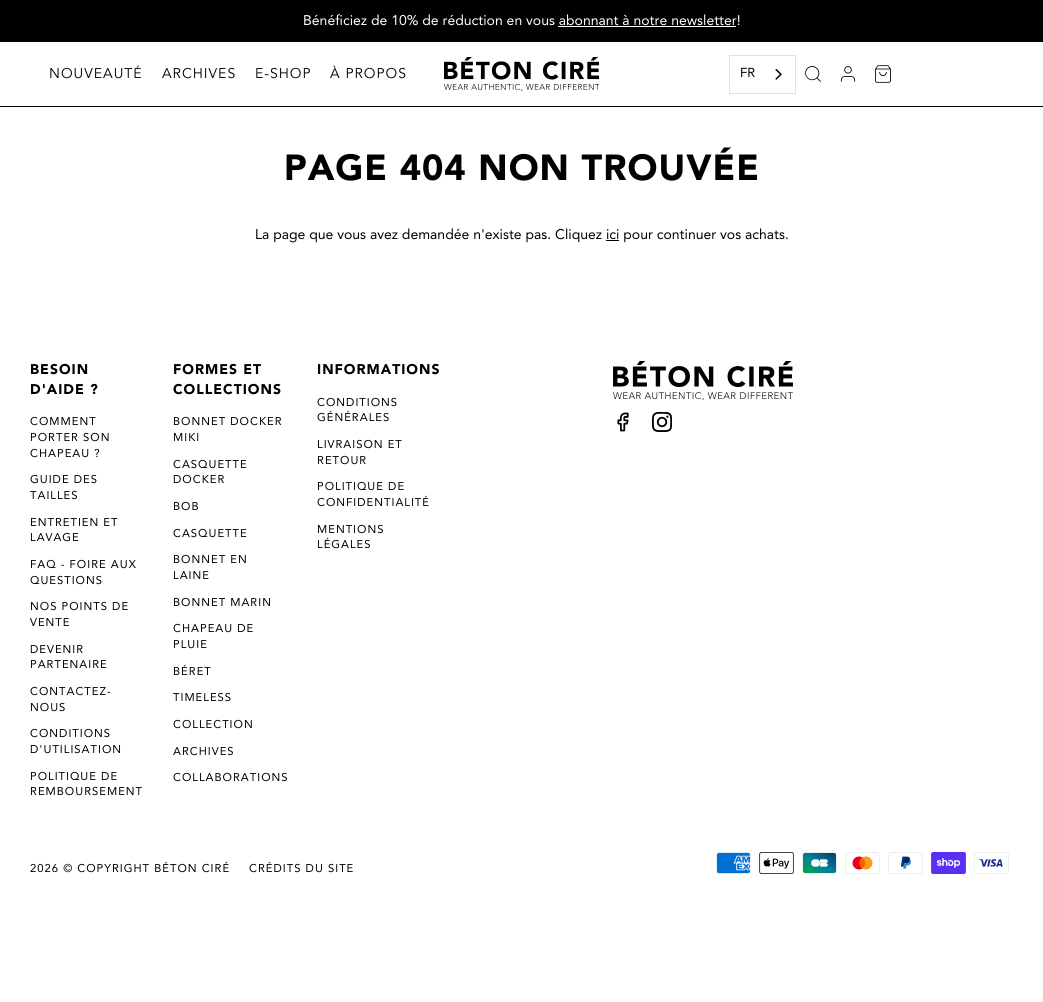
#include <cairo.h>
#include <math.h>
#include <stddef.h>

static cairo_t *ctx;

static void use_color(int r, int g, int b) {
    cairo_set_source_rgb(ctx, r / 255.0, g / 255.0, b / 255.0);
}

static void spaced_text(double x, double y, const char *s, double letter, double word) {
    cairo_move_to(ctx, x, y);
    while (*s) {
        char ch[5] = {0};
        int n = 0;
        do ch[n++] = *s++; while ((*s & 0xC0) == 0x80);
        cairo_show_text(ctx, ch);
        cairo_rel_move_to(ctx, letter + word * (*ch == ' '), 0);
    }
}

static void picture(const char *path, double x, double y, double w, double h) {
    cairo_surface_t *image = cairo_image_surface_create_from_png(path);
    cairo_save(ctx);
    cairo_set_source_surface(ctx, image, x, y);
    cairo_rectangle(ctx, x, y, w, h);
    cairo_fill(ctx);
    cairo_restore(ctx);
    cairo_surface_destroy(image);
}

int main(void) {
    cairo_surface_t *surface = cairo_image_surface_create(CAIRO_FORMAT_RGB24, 1043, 1002);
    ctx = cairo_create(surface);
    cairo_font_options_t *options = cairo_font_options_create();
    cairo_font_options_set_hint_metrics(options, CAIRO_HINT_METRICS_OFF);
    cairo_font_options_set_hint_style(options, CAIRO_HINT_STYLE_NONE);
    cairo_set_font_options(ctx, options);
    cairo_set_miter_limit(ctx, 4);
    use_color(255, 255, 255);
    cairo_paint(ctx);
    use_color(0, 0, 0);
    cairo_rectangle(ctx, 0, 0, 1043, 42);
    cairo_fill(ctx);
    cairo_select_font_face(ctx, "Avenir", CAIRO_FONT_SLANT_NORMAL, CAIRO_FONT_WEIGHT_NORMAL);
    cairo_set_font_size(ctx, 14);
    use_color(255, 255, 255);
    cairo_move_to(ctx, 303, 25);
    cairo_show_text(ctx, "Bénéficiez de 10% de réduction en vous abonnant à notre newsletter!");
    cairo_rectangle(ctx, 558, 26, 178, 1);
    cairo_fill(ctx);
    use_color(0, 0, 0);
    cairo_rectangle(ctx, 0, 106, 1043, 1);
    cairo_fill(ctx);
    cairo_select_font_face(ctx, "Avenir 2", CAIRO_FONT_SLANT_NORMAL, CAIRO_FONT_WEIGHT_NORMAL);
    spaced_text(49, 78, "NOUVEAUTÉ", 1, 0);
    spaced_text(162, 78, "ARCHIVES", 1, 0);
    spaced_text(255, 78, "E-SHOP", 1, 0);
    spaced_text(330, 78, "À PROPOS", 1, 0);
    picture("img1.png", 444, 57, 155, 34);
    cairo_rectangle(ctx, 729.5, 55.5, 66, 38);
    use_color(224, 224, 224);
    cairo_set_line_width(ctx, 1);
    cairo_stroke(ctx);
    cairo_select_font_face(ctx, "Avenir", CAIRO_FONT_SLANT_NORMAL, CAIRO_FONT_WEIGHT_NORMAL);
    cairo_set_font_size(ctx, 13);
    use_color(0, 0, 0);
    cairo_move_to(ctx, 740, 77);
    cairo_show_text(ctx, "FR");
    picture("img2.png", 775, 69, 7, 11);
    picture("img3.png", 805, 66, 16, 16);
    picture("img4.png", 840, 66, 16, 16);
    picture("img5.png", 875, 65, 16, 18);
    cairo_select_font_face(ctx, "Avenir Black", CAIRO_FONT_SLANT_NORMAL, CAIRO_FONT_WEIGHT_NORMAL);
    cairo_set_font_size(ctx, 36);
    spaced_text(284, 180, "PAGE 404 NON TROUVÉE", 1, 0);
    cairo_select_font_face(ctx, "Avenir", CAIRO_FONT_SLANT_NORMAL, CAIRO_FONT_WEIGHT_NORMAL);
    cairo_set_font_size(ctx, 14);
    cairo_move_to(ctx, 255, 239);
    cairo_show_text(ctx, "La page que vous avez demandée n'existe pas. Cliquez ici pour continuer vos achats.");
    cairo_rectangle(ctx, 606, 240, 13, 1);
    cairo_fill(ctx);
    cairo_select_font_face(ctx, "Avenir Black", CAIRO_FONT_SLANT_NORMAL, CAIRO_FONT_WEIGHT_NORMAL);
    spaced_text(30, 374, "BESOIN", 1, 0);
    spaced_text(30, 394, "D'AIDE ?", 1, 0);
    cairo_select_font_face(ctx, "Avenir", CAIRO_FONT_SLANT_NORMAL, CAIRO_FONT_WEIGHT_NORMAL);
    cairo_set_font_size(ctx, 11.25);
    spaced_text(30, 425, "COMMENT", 1, 0);
    spaced_text(30, 441, "PORTER SON", 1, 0);
    spaced_text(30, 457, "CHAPEAU ?", 1, 0);
    spaced_text(30, 483, "GUIDE DES", 1, 0);
    spaced_text(30, 499, "TAILLES", 1, 0);
    spaced_text(30, 526, "ENTRETIEN ET", 1, 0);
    spaced_text(30, 541, "LAVAGE", 1, 0);
    spaced_text(30, 568, "FAQ - FOIRE AUX", 1, 0);
    spaced_text(30, 584, "QUESTIONS", 1, 0);
    spaced_text(30, 610, "NOS POINTS DE", 1, 0);
    spaced_text(30, 626, "VENTE", 1, 0);
    spaced_text(30, 653, "DEVENIR", 1, 0);
    spaced_text(30, 668, "PARTENAIRE", 1, 0);
    spaced_text(30, 695, "CONTACTEZ-", 1, 0);
    spaced_text(30, 711, "NOUS", 1, 0);
    spaced_text(30, 737, "CONDITIONS", 1, 0);
    spaced_text(30, 753, "D'UTILISATION", 1, 0);
    spaced_text(30, 780, "POLITIQUE DE", 1, 0);
    spaced_text(30, 795, "REMBOURSEMENT", 1, 0);
    cairo_select_font_face(ctx, "Avenir Black", CAIRO_FONT_SLANT_NORMAL, CAIRO_FONT_WEIGHT_NORMAL);
    cairo_set_font_size(ctx, 14);
    spaced_text(173, 374, "FORMES ET", 1, 0);
    spaced_text(173, 394, "COLLECTIONS", 1, 0);
    cairo_select_font_face(ctx, "Avenir", CAIRO_FONT_SLANT_NORMAL, CAIRO_FONT_WEIGHT_NORMAL);
    cairo_set_font_size(ctx, 11.25);
    spaced_text(173, 425, "BONNET DOCKER", 1, 0);
    spaced_text(173, 441, "MIKI", 1, 0);
    spaced_text(173, 468, "CASQUETTE", 1, 0);
    spaced_text(173, 483, "DOCKER", 1, 0);
    spaced_text(173, 510, "BOB", 1, 0);
    spaced_text(173, 537, "CASQUETTE", 1, 0);
    spaced_text(173, 563, "BONNET EN", 1, 0);
    spaced_text(173, 579, "LAINE", 1, 0);
    spaced_text(173, 606, "BONNET MARIN", 1, 0);
    spaced_text(173, 632, "CHAPEAU DE", 1, 0);
    spaced_text(173, 648, "PLUIE", 1, 0);
    spaced_text(173, 675, "BÉRET", 1, 0);
    spaced_text(173, 701, "TIMELESS", 1, 0);
    spaced_text(173, 728, "COLLECTION", 1, 0);
    spaced_text(173, 755, "ARCHIVES", 1, 0);
    spaced_text(173, 781, "COLLABORATIONS", 1, 0);
    cairo_select_font_face(ctx, "Avenir Black", CAIRO_FONT_SLANT_NORMAL, CAIRO_FONT_WEIGHT_NORMAL);
    cairo_set_font_size(ctx, 14);
    spaced_text(317, 374, "INFORMATIONS", 1, 0);
    cairo_select_font_face(ctx, "Avenir", CAIRO_FONT_SLANT_NORMAL, CAIRO_FONT_WEIGHT_NORMAL);
    cairo_set_font_size(ctx, 11.25);
    spaced_text(317, 406, "CONDITIONS", 1, 0);
    spaced_text(317, 421, "GÉNÉRALES", 1, 0);
    spaced_text(317, 448, "LIVRAISON ET", 1, 0);
    spaced_text(317, 464, "RETOUR", 1, 0);
    spaced_text(317, 490, "POLITIQUE DE", 1, 0);
    spaced_text(317, 506, "CONFIDENTIALITÉ", 1, 0);
    spaced_text(317, 533, "MENTIONS", 1, 0);
    spaced_text(317, 548, "LÉGALES", 1, 0);
    picture("img6.png", 613, 361, 180, 39);
    picture("img7.png", 617, 412, 12, 20);
    picture("img8.png", 652, 412, 20, 20);
    spaced_text(30, 872, "2026 © COPYRIGHT BÉTON CIRÉ", 1, 0);
    spaced_text(249, 872, "CRÉDITS DU SITE", 1, 0);
    picture("img9.png", 716, 852, 35, 22);
    picture("img10.png", 759, 852, 35, 22);
    picture("img11.png", 802, 852, 35, 22);
    picture("img12.png", 845, 852, 35, 22);
    picture("img13.png", 888, 852, 35, 22);
    picture("img14.png", 931, 852, 35, 22);
    picture("img15.png", 974, 852, 35, 22);
    cairo_surface_write_to_png(surface, "result.png");
    cairo_font_options_destroy(options);
    cairo_destroy(ctx);
    cairo_surface_destroy(surface);
    return 0;
}
